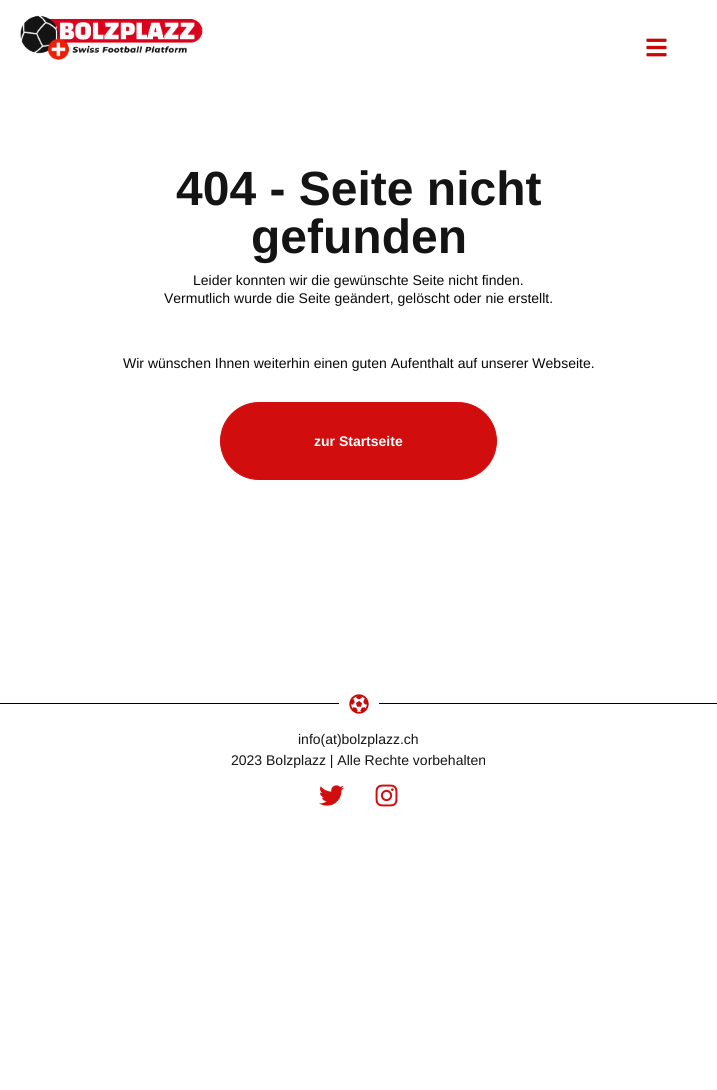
#include <cairo.h>
#include <math.h>
#include <stddef.h>

static cairo_t *ctx;

static void use_color(int r, int g, int b) {
    cairo_set_source_rgb(ctx, r / 255.0, g / 255.0, b / 255.0);
}

static void round_rect(double x, double y, double w, double h, double r) {
    cairo_new_sub_path(ctx);
    cairo_arc(ctx, x + w - r, y + h - r, r, 0, M_PI / 2);
    cairo_arc(ctx, x + r, y + h - r, r, M_PI / 2, M_PI);
    cairo_arc(ctx, x + r, y + r, r, M_PI, 1.5 * M_PI);
    cairo_arc(ctx, x + w - r, y + r, r, 1.5 * M_PI, 2 * M_PI);
    cairo_close_path(ctx);
}

static void picture(const char *path, double x, double y, double w, double h) {
    cairo_surface_t *image = cairo_image_surface_create_from_png(path);
    cairo_save(ctx);
    cairo_set_source_surface(ctx, image, x, y);
    cairo_rectangle(ctx, x, y, w, h);
    cairo_fill(ctx);
    cairo_restore(ctx);
    cairo_surface_destroy(image);
}

int main(void) {
    cairo_surface_t *surface = cairo_image_surface_create(CAIRO_FORMAT_RGB24, 717, 1090);
    ctx = cairo_create(surface);
    cairo_font_options_t *options = cairo_font_options_create();
    cairo_font_options_set_hint_metrics(options, CAIRO_HINT_METRICS_OFF);
    cairo_font_options_set_hint_style(options, CAIRO_HINT_STYLE_NONE);
    cairo_set_font_options(ctx, options);
    cairo_set_miter_limit(ctx, 4);
    use_color(255, 255, 255);
    cairo_paint(ctx);
    picture("img1.png", 20, 15, 183, 45);
    picture("img2.png", 646, 38, 21, 19);
    cairo_select_font_face(ctx, "Liberation Sans", CAIRO_FONT_SLANT_NORMAL, CAIRO_FONT_WEIGHT_BOLD);
    cairo_set_font_size(ctx, 48);
    use_color(20, 20, 20);
    cairo_move_to(ctx, 176, 205);
    cairo_show_text(ctx, "404 - Seite nicht");
    cairo_move_to(ctx, 251, 253);
    cairo_show_text(ctx, "gefunden");
    cairo_select_font_face(ctx, "Liberation Sans", CAIRO_FONT_SLANT_NORMAL, CAIRO_FONT_WEIGHT_NORMAL);
    cairo_set_font_size(ctx, 14);
    use_color(7, 7, 7);
    cairo_move_to(ctx, 193, 285);
    cairo_show_text(ctx, "Leider konnten wir die gewünschte Seite nicht finden.");
    cairo_move_to(ctx, 164, 303);
    cairo_show_text(ctx, "Vermutlich wurde die Seite geändert, gelöscht oder nie erstellt.");
    cairo_move_to(ctx, 123, 368);
    cairo_show_text(ctx, "Wir wünschen Ihnen weiterhin einen guten Aufenthalt auf unserer Webseite.");
    use_color(209, 13, 13);
    round_rect(220.5, 402.5, 276, 77, 38.5);
    cairo_fill_preserve(ctx);
    cairo_set_line_width(ctx, 1);
    cairo_stroke(ctx);
    cairo_select_font_face(ctx, "Liberation Sans", CAIRO_FONT_SLANT_NORMAL, CAIRO_FONT_WEIGHT_BOLD);
    use_color(255, 255, 255);
    cairo_move_to(ctx, 314, 446);
    cairo_show_text(ctx, "zur Startseite");
    use_color(0, 0, 0);
    cairo_rectangle(ctx, 0, 703, 339, 1);
    cairo_fill(ctx);
    picture("img3.png", 349, 694, 20, 20);
    cairo_rectangle(ctx, 379, 703, 338, 1);
    cairo_fill(ctx);
    cairo_select_font_face(ctx, "Liberation Sans", CAIRO_FONT_SLANT_NORMAL, CAIRO_FONT_WEIGHT_NORMAL);
    use_color(20, 20, 20);
    cairo_move_to(ctx, 298, 744);
    cairo_show_text(ctx, "info(at)bolzplazz.ch");
    cairo_move_to(ctx, 231, 765);
    cairo_show_text(ctx, "2023 Bolzplazz | Alle Rechte vorbehalten");
    picture("img4.png", 319, 785, 25, 21);
    picture("img5.png", 375, 784, 23, 23);
    cairo_surface_write_to_png(surface, "result.png");
    cairo_font_options_destroy(options);
    cairo_destroy(ctx);
    cairo_surface_destroy(surface);
    return 0;
}
